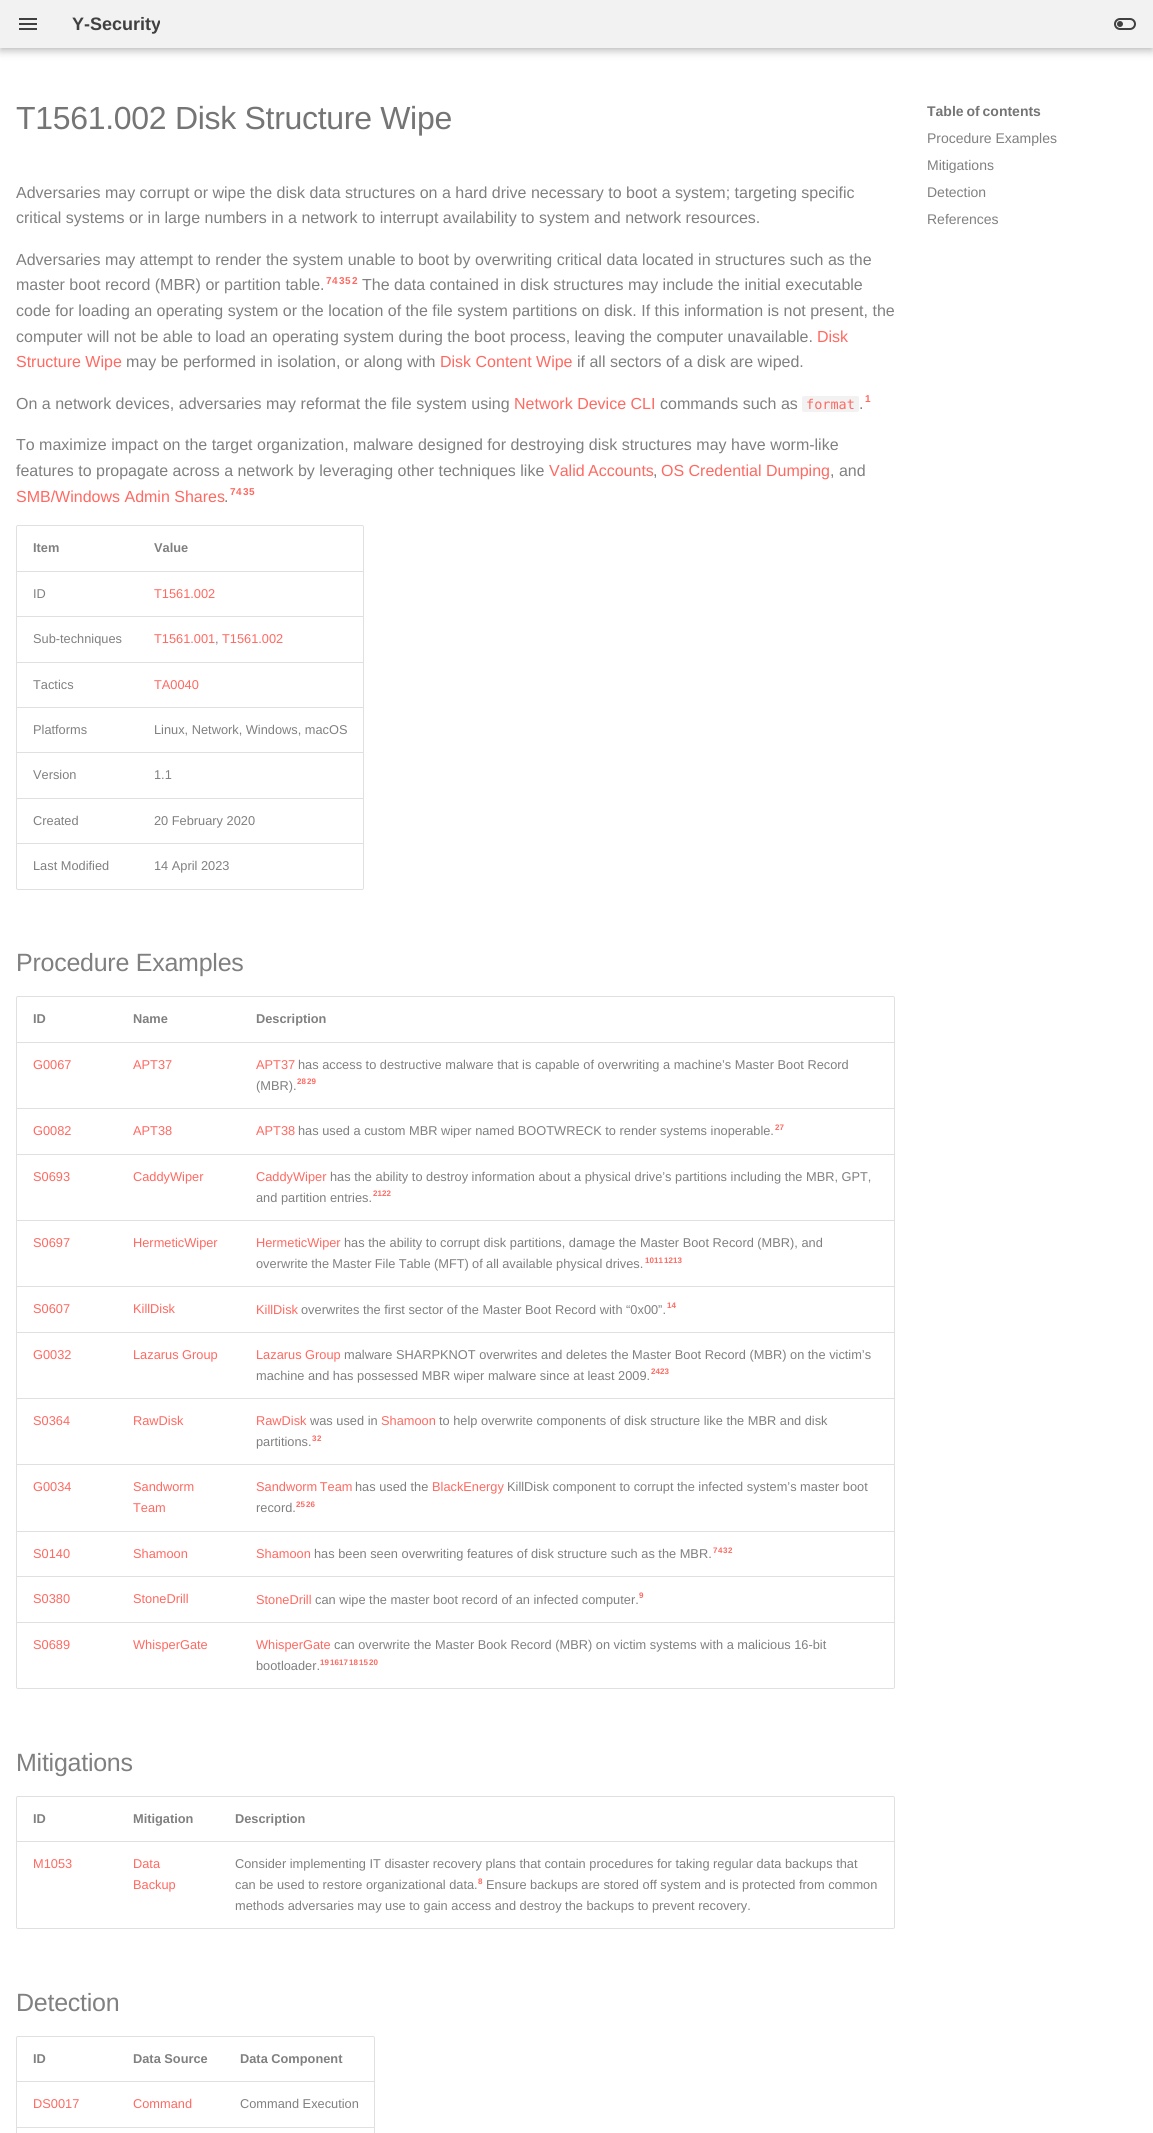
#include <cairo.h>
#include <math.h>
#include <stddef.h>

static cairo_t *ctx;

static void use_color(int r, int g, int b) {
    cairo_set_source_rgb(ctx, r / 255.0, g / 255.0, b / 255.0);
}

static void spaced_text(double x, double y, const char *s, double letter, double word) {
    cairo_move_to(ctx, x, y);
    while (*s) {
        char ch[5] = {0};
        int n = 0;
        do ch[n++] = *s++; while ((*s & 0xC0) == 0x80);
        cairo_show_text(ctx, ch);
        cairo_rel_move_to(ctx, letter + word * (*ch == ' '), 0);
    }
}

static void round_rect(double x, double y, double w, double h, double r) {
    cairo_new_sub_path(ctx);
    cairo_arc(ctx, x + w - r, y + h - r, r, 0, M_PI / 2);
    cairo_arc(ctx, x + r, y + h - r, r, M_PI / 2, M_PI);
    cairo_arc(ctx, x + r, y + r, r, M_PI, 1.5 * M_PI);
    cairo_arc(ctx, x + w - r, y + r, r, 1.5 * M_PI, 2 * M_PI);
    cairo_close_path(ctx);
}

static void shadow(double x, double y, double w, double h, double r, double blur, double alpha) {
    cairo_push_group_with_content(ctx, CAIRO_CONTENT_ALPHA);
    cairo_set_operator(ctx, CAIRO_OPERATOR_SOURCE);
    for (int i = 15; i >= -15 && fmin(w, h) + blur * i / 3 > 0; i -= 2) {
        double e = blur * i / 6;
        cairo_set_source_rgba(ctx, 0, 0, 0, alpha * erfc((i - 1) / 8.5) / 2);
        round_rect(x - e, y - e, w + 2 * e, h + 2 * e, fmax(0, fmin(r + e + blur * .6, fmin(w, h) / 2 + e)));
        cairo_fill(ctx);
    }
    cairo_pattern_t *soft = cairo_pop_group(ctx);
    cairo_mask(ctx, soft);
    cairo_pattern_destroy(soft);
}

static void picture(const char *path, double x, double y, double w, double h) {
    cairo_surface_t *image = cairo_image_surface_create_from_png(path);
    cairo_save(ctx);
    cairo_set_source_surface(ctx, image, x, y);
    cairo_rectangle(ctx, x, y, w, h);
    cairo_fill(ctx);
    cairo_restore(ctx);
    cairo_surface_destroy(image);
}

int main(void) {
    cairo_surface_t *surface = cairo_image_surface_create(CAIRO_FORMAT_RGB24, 1153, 2133);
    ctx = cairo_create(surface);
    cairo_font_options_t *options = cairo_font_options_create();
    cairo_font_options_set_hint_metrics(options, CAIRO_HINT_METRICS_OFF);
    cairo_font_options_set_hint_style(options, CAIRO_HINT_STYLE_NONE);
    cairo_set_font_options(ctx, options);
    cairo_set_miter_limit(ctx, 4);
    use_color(255, 255, 255);
    cairo_paint(ctx);
    use_color(0, 0, 0);
    shadow(0, 4, 1153, 48, 0, 4, 0.2);
    shadow(0, 0, 1153, 48, 0, 2, 0.1);
    use_color(242, 242, 242);
    cairo_rectangle(ctx, 0, 0, 1153, 48);
    cairo_fill(ctx);
    picture("img1.png", 19, 18, 18, 12);
    cairo_save(ctx);
    cairo_rectangle(ctx, 72, 0, 88, 48);
    cairo_clip(ctx);
    cairo_select_font_face(ctx, "Liberation Sans", CAIRO_FONT_SLANT_NORMAL, CAIRO_FONT_WEIGHT_BOLD);
    cairo_set_font_size(ctx, 18);
    use_color(64, 64, 64);
    cairo_move_to(ctx, 72, 30);
    cairo_show_text(ctx, "Y-Security");
    cairo_restore(ctx);
    picture("img2.png", 1114, 18, 22, 12);
    cairo_select_font_face(ctx, "Liberation Sans", CAIRO_FONT_SLANT_NORMAL, CAIRO_FONT_WEIGHT_NORMAL);
    cairo_set_font_size(ctx, 32);
    use_color(117, 117, 117);
    spaced_text(16, 129, "T1561.002 Disk Structure Wipe", -0.3, 0);
    cairo_set_font_size(ctx, 16);
    use_color(128, 128, 128);
    cairo_move_to(ctx, 16, 198);
    cairo_show_text(ctx, "Adversaries may corrupt or wipe the disk data structures on a hard drive necessary to boot a system; targeting specific");
    cairo_move_to(ctx, 16, 223);
    cairo_show_text(ctx, "critical systems or in large numbers in a network to interrupt availability to system and network resources.");
    cairo_move_to(ctx, 16, 265);
    cairo_show_text(ctx, "Adversaries may attempt to render the system unable to boot by overwriting critical data located in structures such as the");
    cairo_move_to(ctx, 16, 290);
    cairo_show_text(ctx, "master boot record (MBR) or partition table.");
    cairo_select_font_face(ctx, "Liberation Sans", CAIRO_FONT_SLANT_NORMAL, CAIRO_FONT_WEIGHT_BOLD);
    cairo_set_font_size(ctx, 10);
    use_color(255, 105, 97);
    cairo_move_to(ctx, 326, 284);
    cairo_show_text(ctx, "7");
    cairo_move_to(ctx, 332, 284);
    cairo_show_text(ctx, "4");
    cairo_move_to(ctx, 339, 284);
    cairo_show_text(ctx, "3");
    cairo_move_to(ctx, 345, 284);
    cairo_show_text(ctx, "5");
    cairo_move_to(ctx, 352, 284);
    cairo_show_text(ctx, "2");
    cairo_select_font_face(ctx, "Liberation Sans", CAIRO_FONT_SLANT_NORMAL, CAIRO_FONT_WEIGHT_NORMAL);
    cairo_set_font_size(ctx, 16);
    use_color(128, 128, 128);
    cairo_move_to(ctx, 362, 290);
    cairo_show_text(ctx, "The data contained in disk structures may include the initial executable");
    cairo_move_to(ctx, 16, 316);
    cairo_show_text(ctx, "code for loading an operating system or the location of the file system partitions on disk. If this information is not present, the");
    cairo_move_to(ctx, 16, 342);
    cairo_show_text(ctx, "computer will not be able to load an operating system during the boot process, leaving the computer unavailable.");
    use_color(255, 105, 97);
    cairo_move_to(ctx, 817, 342);
    cairo_show_text(ctx, "Disk");
    cairo_move_to(ctx, 16, 367);
    cairo_show_text(ctx, "Structure Wipe");
    use_color(128, 128, 128);
    cairo_move_to(ctx, 126, 367);
    cairo_show_text(ctx, "may be performed in isolation, or along with");
    use_color(255, 105, 97);
    cairo_move_to(ctx, 440, 367);
    cairo_show_text(ctx, "Disk Content Wipe");
    use_color(128, 128, 128);
    cairo_move_to(ctx, 577, 367);
    cairo_show_text(ctx, "if all sectors of a disk are wiped.");
    cairo_move_to(ctx, 16, 409);
    cairo_show_text(ctx, "On a network devices, adversaries may reformat the file system using");
    use_color(255, 105, 97);
    cairo_move_to(ctx, 514, 409);
    cairo_show_text(ctx, "Network Device CLI");
    use_color(128, 128, 128);
    cairo_move_to(ctx, 660, 409);
    cairo_show_text(ctx, "commands such as");
    use_color(242, 242, 242);
    round_rect(802, 396, 57, 16, 2);
    cairo_fill(ctx);
    cairo_select_font_face(ctx, "DejaVu Sans Mono", CAIRO_FONT_SLANT_NORMAL, CAIRO_FONT_WEIGHT_NORMAL);
    cairo_set_font_size(ctx, 13.5);
    use_color(255, 105, 97);
    cairo_move_to(ctx, 806, 409);
    cairo_show_text(ctx, "format");
    cairo_select_font_face(ctx, "Liberation Sans", CAIRO_FONT_SLANT_NORMAL, CAIRO_FONT_WEIGHT_NORMAL);
    cairo_set_font_size(ctx, 16);
    use_color(128, 128, 128);
    cairo_move_to(ctx, 859, 409);
    cairo_show_text(ctx, ".");
    cairo_select_font_face(ctx, "Liberation Sans", CAIRO_FONT_SLANT_NORMAL, CAIRO_FONT_WEIGHT_BOLD);
    cairo_set_font_size(ctx, 10);
    use_color(255, 105, 97);
    cairo_move_to(ctx, 865, 402);
    cairo_show_text(ctx, "1");
    cairo_select_font_face(ctx, "Liberation Sans", CAIRO_FONT_SLANT_NORMAL, CAIRO_FONT_WEIGHT_NORMAL);
    cairo_set_font_size(ctx, 16);
    use_color(128, 128, 128);
    cairo_move_to(ctx, 16, 450);
    cairo_show_text(ctx, "To maximize impact on the target organization, malware designed for destroying disk structures may have worm-like");
    cairo_move_to(ctx, 16, 476);
    cairo_show_text(ctx, "features to propagate across a network by leveraging other techniques like");
    use_color(255, 105, 97);
    spaced_text(549, 476, "Valid Accounts", 0, -1);
    use_color(128, 128, 128);
    cairo_move_to(ctx, 653, 476);
    cairo_show_text(ctx, ",");
    use_color(255, 105, 97);
    cairo_move_to(ctx, 661, 476);
    cairo_show_text(ctx, "OS Credential Dumping");
    use_color(128, 128, 128);
    cairo_move_to(ctx, 830, 476);
    cairo_show_text(ctx, ", and");
    use_color(255, 105, 97);
    cairo_move_to(ctx, 16, 502);
    cairo_show_text(ctx, "SMB/Windows Admin Shares");
    use_color(128, 128, 128);
    cairo_move_to(ctx, 224, 502);
    cairo_show_text(ctx, ".");
    cairo_select_font_face(ctx, "Liberation Sans", CAIRO_FONT_SLANT_NORMAL, CAIRO_FONT_WEIGHT_BOLD);
    cairo_set_font_size(ctx, 10);
    use_color(255, 105, 97);
    cairo_move_to(ctx, 230, 495);
    cairo_show_text(ctx, "7");
    cairo_move_to(ctx, 236, 495);
    cairo_show_text(ctx, "4");
    cairo_move_to(ctx, 243, 495);
    cairo_show_text(ctx, "3");
    cairo_move_to(ctx, 249, 495);
    cairo_show_text(ctx, "5");
    round_rect(16.5, 525.5, 347, 364, 1.5);
    use_color(224, 224, 224);
    cairo_set_line_width(ctx, 1);
    cairo_stroke(ctx);
    cairo_set_font_size(ctx, 12.8);
    use_color(128, 128, 128);
    cairo_move_to(ctx, 33, 552);
    cairo_show_text(ctx, "Item");
    cairo_move_to(ctx, 154, 552);
    cairo_show_text(ctx, "Value");
    use_color(224, 224, 224);
    cairo_rectangle(ctx, 17, 571, 346, 1);
    cairo_fill(ctx);
    cairo_select_font_face(ctx, "Liberation Sans", CAIRO_FONT_SLANT_NORMAL, CAIRO_FONT_WEIGHT_NORMAL);
    use_color(128, 128, 128);
    cairo_move_to(ctx, 33, 598);
    cairo_show_text(ctx, "ID");
    use_color(255, 105, 97);
    cairo_move_to(ctx, 154, 598);
    cairo_show_text(ctx, "T1561.002");
    use_color(224, 224, 224);
    cairo_rectangle(ctx, 17, 616, 346, 1);
    cairo_fill(ctx);
    use_color(128, 128, 128);
    cairo_move_to(ctx, 33, 643);
    cairo_show_text(ctx, "Sub-techniques");
    use_color(255, 105, 97);
    cairo_move_to(ctx, 154, 643);
    cairo_show_text(ctx, "T1561.001");
    use_color(128, 128, 128);
    cairo_move_to(ctx, 215, 643);
    cairo_show_text(ctx, ",");
    use_color(255, 105, 97);
    cairo_move_to(ctx, 222, 643);
    cairo_show_text(ctx, "T1561.002");
    use_color(224, 224, 224);
    cairo_rectangle(ctx, 17, 662, 346, 1);
    cairo_fill(ctx);
    use_color(128, 128, 128);
    cairo_move_to(ctx, 33, 689);
    cairo_show_text(ctx, "Tactics");
    use_color(255, 105, 97);
    cairo_move_to(ctx, 154, 689);
    cairo_show_text(ctx, "TA0040");
    use_color(224, 224, 224);
    cairo_rectangle(ctx, 17, 707, 346, 1);
    cairo_fill(ctx);
    use_color(128, 128, 128);
    cairo_move_to(ctx, 33, 734);
    cairo_show_text(ctx, "Platforms");
    cairo_move_to(ctx, 154, 734);
    cairo_show_text(ctx, "Linux, Network, Windows, macOS");
    use_color(224, 224, 224);
    cairo_rectangle(ctx, 17, 752, 346, 1);
    cairo_fill(ctx);
    use_color(128, 128, 128);
    cairo_move_to(ctx, 33, 779);
    cairo_show_text(ctx, "Version");
    cairo_move_to(ctx, 154, 779);
    cairo_show_text(ctx, "1.1");
    use_color(224, 224, 224);
    cairo_rectangle(ctx, 17, 798, 346, 1);
    cairo_fill(ctx);
    use_color(128, 128, 128);
    cairo_move_to(ctx, 33, 825);
    cairo_show_text(ctx, "Created");
    cairo_move_to(ctx, 154, 825);
    cairo_show_text(ctx, "20 February 2020");
    use_color(224, 224, 224);
    cairo_rectangle(ctx, 17, 843, 346, 1);
    cairo_fill(ctx);
    use_color(128, 128, 128);
    cairo_move_to(ctx, 33, 870);
    cairo_show_text(ctx, "Last Modified");
    cairo_move_to(ctx, 154, 870);
    cairo_show_text(ctx, "14 April 2023");
    cairo_set_font_size(ctx, 25);
    spaced_text(16, 971, "Procedure Examples", -0.25, 0);
    round_rect(16.5, 996.5, 878, 692, 1.5);
    use_color(224, 224, 224);
    cairo_stroke(ctx);
    cairo_select_font_face(ctx, "Liberation Sans", CAIRO_FONT_SLANT_NORMAL, CAIRO_FONT_WEIGHT_BOLD);
    cairo_set_font_size(ctx, 12.8);
    use_color(128, 128, 128);
    cairo_move_to(ctx, 33, 1023);
    cairo_show_text(ctx, "ID");
    cairo_move_to(ctx, 133, 1023);
    cairo_show_text(ctx, "Name");
    cairo_move_to(ctx, 256, 1023);
    cairo_show_text(ctx, "Description");
    use_color(224, 224, 224);
    cairo_rectangle(ctx, 17, 1042, 877, 1);
    cairo_fill(ctx);
    cairo_select_font_face(ctx, "Liberation Sans", CAIRO_FONT_SLANT_NORMAL, CAIRO_FONT_WEIGHT_NORMAL);
    use_color(255, 105, 97);
    cairo_move_to(ctx, 33, 1069);
    cairo_show_text(ctx, "G0067");
    cairo_move_to(ctx, 133, 1069);
    cairo_show_text(ctx, "APT37");
    cairo_move_to(ctx, 256, 1069);
    cairo_show_text(ctx, "APT37");
    use_color(128, 128, 128);
    cairo_move_to(ctx, 298, 1069);
    cairo_show_text(ctx, "has access to destructive malware that is capable of overwriting a machine’s Master Boot Record");
    cairo_move_to(ctx, 256, 1090);
    cairo_show_text(ctx, "(MBR).");
    cairo_select_font_face(ctx, "Liberation Sans", CAIRO_FONT_SLANT_NORMAL, CAIRO_FONT_WEIGHT_BOLD);
    cairo_set_font_size(ctx, 8);
    use_color(255, 105, 97);
    cairo_move_to(ctx, 297, 1084);
    cairo_show_text(ctx, "28");
    cairo_move_to(ctx, 307, 1084);
    cairo_show_text(ctx, "29");
    use_color(224, 224, 224);
    cairo_rectangle(ctx, 17, 1108, 877, 1);
    cairo_fill(ctx);
    cairo_select_font_face(ctx, "Liberation Sans", CAIRO_FONT_SLANT_NORMAL, CAIRO_FONT_WEIGHT_NORMAL);
    cairo_set_font_size(ctx, 12.8);
    use_color(255, 105, 97);
    cairo_move_to(ctx, 33, 1135);
    cairo_show_text(ctx, "G0082");
    cairo_move_to(ctx, 133, 1135);
    cairo_show_text(ctx, "APT38");
    cairo_move_to(ctx, 256, 1135);
    cairo_show_text(ctx, "APT38");
    use_color(128, 128, 128);
    cairo_move_to(ctx, 298, 1135);
    cairo_show_text(ctx, "has used a custom MBR wiper named BOOTWRECK to render systems inoperable.");
    cairo_select_font_face(ctx, "Liberation Sans", CAIRO_FONT_SLANT_NORMAL, CAIRO_FONT_WEIGHT_BOLD);
    cairo_set_font_size(ctx, 8);
    use_color(255, 105, 97);
    cairo_move_to(ctx, 775, 1130);
    cairo_show_text(ctx, "27");
    use_color(224, 224, 224);
    cairo_rectangle(ctx, 17, 1154, 877, 1);
    cairo_fill(ctx);
    cairo_select_font_face(ctx, "Liberation Sans", CAIRO_FONT_SLANT_NORMAL, CAIRO_FONT_WEIGHT_NORMAL);
    cairo_set_font_size(ctx, 12.8);
    use_color(255, 105, 97);
    cairo_move_to(ctx, 33, 1181);
    cairo_show_text(ctx, "S0693");
    cairo_move_to(ctx, 133, 1181);
    cairo_show_text(ctx, "CaddyWiper");
    cairo_move_to(ctx, 256, 1181);
    cairo_show_text(ctx, "CaddyWiper");
    use_color(128, 128, 128);
    cairo_move_to(ctx, 330, 1181);
    cairo_show_text(ctx, "has the ability to destroy information about a physical drive’s partitions including the MBR, GPT,");
    cairo_move_to(ctx, 256, 1202);
    cairo_show_text(ctx, "and partition entries.");
    cairo_select_font_face(ctx, "Liberation Sans", CAIRO_FONT_SLANT_NORMAL, CAIRO_FONT_WEIGHT_BOLD);
    cairo_set_font_size(ctx, 8);
    use_color(255, 105, 97);
    cairo_move_to(ctx, 373, 1196);
    cairo_show_text(ctx, "21");
    cairo_move_to(ctx, 382, 1196);
    cairo_show_text(ctx, "22");
    use_color(224, 224, 224);
    cairo_rectangle(ctx, 17, 1220, 877, 1);
    cairo_fill(ctx);
    cairo_select_font_face(ctx, "Liberation Sans", CAIRO_FONT_SLANT_NORMAL, CAIRO_FONT_WEIGHT_NORMAL);
    cairo_set_font_size(ctx, 12.8);
    use_color(255, 105, 97);
    cairo_move_to(ctx, 33, 1247);
    cairo_show_text(ctx, "S0697");
    cairo_move_to(ctx, 133, 1247);
    cairo_show_text(ctx, "HermeticWiper");
    cairo_move_to(ctx, 256, 1247);
    cairo_show_text(ctx, "HermeticWiper");
    use_color(128, 128, 128);
    cairo_move_to(ctx, 344, 1247);
    cairo_show_text(ctx, "has the ability to corrupt disk partitions, damage the Master Boot Record (MBR), and");
    spaced_text(256, 1268, "overwrite the Master File Table (MFT) of all available physical drives.", 0, -0.25);
    cairo_select_font_face(ctx, "Liberation Sans", CAIRO_FONT_SLANT_NORMAL, CAIRO_FONT_WEIGHT_BOLD);
    cairo_set_font_size(ctx, 8);
    use_color(255, 105, 97);
    cairo_move_to(ctx, 645, 1263);
    cairo_show_text(ctx, "10");
    cairo_move_to(ctx, 654, 1263);
    cairo_show_text(ctx, "11");
    cairo_move_to(ctx, 664, 1263);
    cairo_show_text(ctx, "12");
    cairo_move_to(ctx, 673, 1263);
    cairo_show_text(ctx, "13");
    use_color(224, 224, 224);
    cairo_rectangle(ctx, 17, 1286, 877, 1);
    cairo_fill(ctx);
    cairo_select_font_face(ctx, "Liberation Sans", CAIRO_FONT_SLANT_NORMAL, CAIRO_FONT_WEIGHT_NORMAL);
    cairo_set_font_size(ctx, 12.8);
    use_color(255, 105, 97);
    cairo_move_to(ctx, 33, 1313);
    cairo_show_text(ctx, "S0607");
    cairo_move_to(ctx, 133, 1313);
    cairo_show_text(ctx, "KillDisk");
    cairo_move_to(ctx, 256, 1314);
    cairo_show_text(ctx, "KillDisk");
    use_color(128, 128, 128);
    cairo_move_to(ctx, 301, 1314);
    cairo_show_text(ctx, "overwrites the first sector of the Master Boot Record with “0x00”.");
    cairo_select_font_face(ctx, "Liberation Sans", CAIRO_FONT_SLANT_NORMAL, CAIRO_FONT_WEIGHT_BOLD);
    cairo_set_font_size(ctx, 8);
    use_color(255, 105, 97);
    cairo_move_to(ctx, 667, 1308);
    cairo_show_text(ctx, "14");
    use_color(224, 224, 224);
    cairo_rectangle(ctx, 17, 1332, 877, 1);
    cairo_fill(ctx);
    cairo_select_font_face(ctx, "Liberation Sans", CAIRO_FONT_SLANT_NORMAL, CAIRO_FONT_WEIGHT_NORMAL);
    cairo_set_font_size(ctx, 12.8);
    use_color(255, 105, 97);
    cairo_move_to(ctx, 33, 1359);
    cairo_show_text(ctx, "G0032");
    cairo_move_to(ctx, 133, 1359);
    cairo_show_text(ctx, "Lazarus Group");
    cairo_move_to(ctx, 256, 1359);
    cairo_show_text(ctx, "Lazarus Group");
    use_color(128, 128, 128);
    cairo_move_to(ctx, 344, 1359);
    cairo_show_text(ctx, "malware SHARPKNOT overwrites and deletes the Master Boot Record (MBR) on the victim’s");
    cairo_move_to(ctx, 256, 1380);
    cairo_show_text(ctx, "machine and has possessed MBR wiper malware since at least 2009.");
    cairo_select_font_face(ctx, "Liberation Sans", CAIRO_FONT_SLANT_NORMAL, CAIRO_FONT_WEIGHT_BOLD);
    cairo_set_font_size(ctx, 8);
    use_color(255, 105, 97);
    cairo_move_to(ctx, 651, 1374);
    cairo_show_text(ctx, "24");
    cairo_move_to(ctx, 660, 1374);
    cairo_show_text(ctx, "23");
    use_color(224, 224, 224);
    cairo_rectangle(ctx, 17, 1398, 877, 1);
    cairo_fill(ctx);
    cairo_select_font_face(ctx, "Liberation Sans", CAIRO_FONT_SLANT_NORMAL, CAIRO_FONT_WEIGHT_NORMAL);
    cairo_set_font_size(ctx, 12.8);
    use_color(255, 105, 97);
    cairo_move_to(ctx, 33, 1425);
    cairo_show_text(ctx, "S0364");
    cairo_move_to(ctx, 133, 1425);
    cairo_show_text(ctx, "RawDisk");
    cairo_move_to(ctx, 256, 1425);
    cairo_show_text(ctx, "RawDisk");
    use_color(128, 128, 128);
    cairo_move_to(ctx, 310, 1425);
    cairo_show_text(ctx, "was used in");
    use_color(255, 105, 97);
    cairo_move_to(ctx, 381, 1425);
    cairo_show_text(ctx, "Shamoon");
    use_color(128, 128, 128);
    cairo_move_to(ctx, 439, 1425);
    cairo_show_text(ctx, "to help overwrite components of disk structure like the MBR and disk");
    cairo_move_to(ctx, 256, 1446);
    cairo_show_text(ctx, "partitions.");
    cairo_select_font_face(ctx, "Liberation Sans", CAIRO_FONT_SLANT_NORMAL, CAIRO_FONT_WEIGHT_BOLD);
    cairo_set_font_size(ctx, 8);
    use_color(255, 105, 97);
    cairo_move_to(ctx, 312, 1441);
    cairo_show_text(ctx, "3");
    cairo_move_to(ctx, 317, 1441);
    cairo_show_text(ctx, "2");
    use_color(224, 224, 224);
    cairo_rectangle(ctx, 17, 1464, 877, 1);
    cairo_fill(ctx);
    cairo_select_font_face(ctx, "Liberation Sans", CAIRO_FONT_SLANT_NORMAL, CAIRO_FONT_WEIGHT_NORMAL);
    cairo_set_font_size(ctx, 12.8);
    use_color(255, 105, 97);
    cairo_move_to(ctx, 33, 1491);
    cairo_show_text(ctx, "G0034");
    cairo_move_to(ctx, 133, 1491);
    cairo_show_text(ctx, "Sandworm");
    cairo_move_to(ctx, 133, 1512);
    cairo_show_text(ctx, "Team");
    spaced_text(256, 1491, "Sandworm Team", 0, -1);
    use_color(128, 128, 128);
    cairo_move_to(ctx, 355, 1491);
    cairo_show_text(ctx, "has used the");
    use_color(255, 105, 97);
    cairo_move_to(ctx, 432, 1491);
    cairo_show_text(ctx, "BlackEnergy");
    use_color(128, 128, 128);
    cairo_move_to(ctx, 507, 1491);
    cairo_show_text(ctx, "KillDisk component to corrupt the infected system’s master boot");
    cairo_move_to(ctx, 256, 1512);
    cairo_show_text(ctx, "record.");
    cairo_select_font_face(ctx, "Liberation Sans", CAIRO_FONT_SLANT_NORMAL, CAIRO_FONT_WEIGHT_BOLD);
    cairo_set_font_size(ctx, 8);
    use_color(255, 105, 97);
    cairo_move_to(ctx, 296, 1507);
    cairo_show_text(ctx, "25");
    cairo_move_to(ctx, 306, 1507);
    cairo_show_text(ctx, "26");
    use_color(224, 224, 224);
    cairo_rectangle(ctx, 17, 1531, 877, 1);
    cairo_fill(ctx);
    cairo_select_font_face(ctx, "Liberation Sans", CAIRO_FONT_SLANT_NORMAL, CAIRO_FONT_WEIGHT_NORMAL);
    cairo_set_font_size(ctx, 12.8);
    use_color(255, 105, 97);
    cairo_move_to(ctx, 33, 1558);
    cairo_show_text(ctx, "S0140");
    cairo_move_to(ctx, 133, 1558);
    cairo_show_text(ctx, "Shamoon");
    cairo_move_to(ctx, 256, 1558);
    cairo_show_text(ctx, "Shamoon");
    use_color(128, 128, 128);
    cairo_move_to(ctx, 314, 1558);
    cairo_show_text(ctx, "has been seen overwriting features of disk structure such as the MBR.");
    cairo_select_font_face(ctx, "Liberation Sans", CAIRO_FONT_SLANT_NORMAL, CAIRO_FONT_WEIGHT_BOLD);
    cairo_set_font_size(ctx, 8);
    use_color(255, 105, 97);
    cairo_move_to(ctx, 713, 1553);
    cairo_show_text(ctx, "7");
    cairo_move_to(ctx, 718, 1553);
    cairo_show_text(ctx, "4");
    cairo_move_to(ctx, 723, 1553);
    cairo_show_text(ctx, "3");
    cairo_move_to(ctx, 728, 1553);
    cairo_show_text(ctx, "2");
    use_color(224, 224, 224);
    cairo_rectangle(ctx, 17, 1576, 877, 1);
    cairo_fill(ctx);
    cairo_select_font_face(ctx, "Liberation Sans", CAIRO_FONT_SLANT_NORMAL, CAIRO_FONT_WEIGHT_NORMAL);
    cairo_set_font_size(ctx, 12.8);
    use_color(255, 105, 97);
    cairo_move_to(ctx, 33, 1603);
    cairo_show_text(ctx, "S0380");
    cairo_move_to(ctx, 133, 1603);
    cairo_show_text(ctx, "StoneDrill");
    cairo_move_to(ctx, 256, 1604);
    cairo_show_text(ctx, "StoneDrill");
    use_color(128, 128, 128);
    cairo_move_to(ctx, 315, 1604);
    cairo_show_text(ctx, "can wipe the master boot record of an infected computer.");
    cairo_select_font_face(ctx, "Liberation Sans", CAIRO_FONT_SLANT_NORMAL, CAIRO_FONT_WEIGHT_BOLD);
    cairo_set_font_size(ctx, 8);
    use_color(255, 105, 97);
    cairo_move_to(ctx, 639, 1598);
    cairo_show_text(ctx, "9");
    use_color(224, 224, 224);
    cairo_rectangle(ctx, 17, 1622, 877, 1);
    cairo_fill(ctx);
    cairo_select_font_face(ctx, "Liberation Sans", CAIRO_FONT_SLANT_NORMAL, CAIRO_FONT_WEIGHT_NORMAL);
    cairo_set_font_size(ctx, 12.8);
    use_color(255, 105, 97);
    cairo_move_to(ctx, 33, 1649);
    cairo_show_text(ctx, "S0689");
    cairo_move_to(ctx, 133, 1649);
    cairo_show_text(ctx, "WhisperGate");
    cairo_move_to(ctx, 256, 1649);
    cairo_show_text(ctx, "WhisperGate");
    use_color(128, 128, 128);
    cairo_move_to(ctx, 334, 1649);
    cairo_show_text(ctx, "can overwrite the Master Book Record (MBR) on victim systems with a malicious 16-bit");
    cairo_move_to(ctx, 256, 1670);
    cairo_show_text(ctx, "bootloader.");
    cairo_select_font_face(ctx, "Liberation Sans", CAIRO_FONT_SLANT_NORMAL, CAIRO_FONT_WEIGHT_BOLD);
    cairo_set_font_size(ctx, 8);
    use_color(255, 105, 97);
    cairo_move_to(ctx, 320, 1665);
    cairo_show_text(ctx, "19");
    cairo_move_to(ctx, 330, 1665);
    cairo_show_text(ctx, "16");
    cairo_move_to(ctx, 339, 1665);
    cairo_show_text(ctx, "17");
    cairo_move_to(ctx, 349, 1665);
    cairo_show_text(ctx, "18");
    cairo_move_to(ctx, 359, 1665);
    cairo_show_text(ctx, "15");
    cairo_move_to(ctx, 369, 1665);
    cairo_show_text(ctx, "20");
    cairo_select_font_face(ctx, "Liberation Sans", CAIRO_FONT_SLANT_NORMAL, CAIRO_FONT_WEIGHT_NORMAL);
    cairo_set_font_size(ctx, 25);
    use_color(128, 128, 128);
    spaced_text(16, 1771, "Mitigations", -0.25, 0);
    round_rect(16.5, 1796.5, 878, 132, 1.5);
    use_color(224, 224, 224);
    cairo_stroke(ctx);
    cairo_select_font_face(ctx, "Liberation Sans", CAIRO_FONT_SLANT_NORMAL, CAIRO_FONT_WEIGHT_BOLD);
    cairo_set_font_size(ctx, 12.8);
    use_color(128, 128, 128);
    cairo_move_to(ctx, 33, 1823);
    cairo_show_text(ctx, "ID");
    cairo_move_to(ctx, 133, 1823);
    cairo_show_text(ctx, "Mitigation");
    cairo_move_to(ctx, 235, 1823);
    cairo_show_text(ctx, "Description");
    use_color(224, 224, 224);
    cairo_rectangle(ctx, 17, 1841, 877, 1);
    cairo_fill(ctx);
    cairo_select_font_face(ctx, "Liberation Sans", CAIRO_FONT_SLANT_NORMAL, CAIRO_FONT_WEIGHT_NORMAL);
    use_color(255, 105, 97);
    cairo_move_to(ctx, 33, 1868);
    cairo_show_text(ctx, "M1053");
    cairo_move_to(ctx, 133, 1868);
    cairo_show_text(ctx, "Data");
    cairo_move_to(ctx, 133, 1889);
    cairo_show_text(ctx, "Backup");
    use_color(128, 128, 128);
    cairo_move_to(ctx, 235, 1868);
    cairo_show_text(ctx, "Consider implementing IT disaster recovery plans that contain procedures for taking regular data backups that");
    cairo_move_to(ctx, 235, 1889);
    cairo_show_text(ctx, "can be used to restore organizational data.");
    cairo_select_font_face(ctx, "Liberation Sans", CAIRO_FONT_SLANT_NORMAL, CAIRO_FONT_WEIGHT_BOLD);
    cairo_set_font_size(ctx, 8);
    use_color(255, 105, 97);
    cairo_move_to(ctx, 478, 1884);
    cairo_show_text(ctx, "8");
    cairo_select_font_face(ctx, "Liberation Sans", CAIRO_FONT_SLANT_NORMAL, CAIRO_FONT_WEIGHT_NORMAL);
    cairo_set_font_size(ctx, 12.8);
    use_color(128, 128, 128);
    cairo_move_to(ctx, 486, 1889);
    cairo_show_text(ctx, "Ensure backups are stored off system and is protected from common");
    cairo_move_to(ctx, 235, 1910);
    cairo_show_text(ctx, "methods adversaries may use to gain access and destroy the backups to prevent recovery.");
    cairo_set_font_size(ctx, 25);
    spaced_text(16, 2011, "Detection", -0.25, 0);
    round_rect(16.5, 2036.5, 358, 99, 1.5);
    use_color(224, 224, 224);
    cairo_stroke(ctx);
    cairo_select_font_face(ctx, "Liberation Sans", CAIRO_FONT_SLANT_NORMAL, CAIRO_FONT_WEIGHT_BOLD);
    cairo_set_font_size(ctx, 12.8);
    use_color(128, 128, 128);
    cairo_move_to(ctx, 33, 2063);
    cairo_show_text(ctx, "ID");
    cairo_move_to(ctx, 133, 2063);
    cairo_show_text(ctx, "Data Source");
    cairo_move_to(ctx, 240, 2063);
    cairo_show_text(ctx, "Data Component");
    use_color(224, 224, 224);
    cairo_rectangle(ctx, 17, 2081, 357, 1);
    cairo_fill(ctx);
    cairo_select_font_face(ctx, "Liberation Sans", CAIRO_FONT_SLANT_NORMAL, CAIRO_FONT_WEIGHT_NORMAL);
    use_color(255, 105, 97);
    cairo_move_to(ctx, 33, 2108);
    cairo_show_text(ctx, "DS0017");
    cairo_move_to(ctx, 133, 2108);
    cairo_show_text(ctx, "Command");
    use_color(128, 128, 128);
    cairo_move_to(ctx, 240, 2108);
    cairo_show_text(ctx, "Command Execution");
    use_color(224, 224, 224);
    cairo_rectangle(ctx, 17, 2127, 357, 1);
    cairo_fill(ctx);
    cairo_save(ctx);
    cairo_rectangle(ctx, 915, 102, 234, 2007);
    cairo_clip(ctx);
    cairo_set_fill_rule(ctx, CAIRO_FILL_RULE_EVEN_ODD);
    cairo_new_path(ctx);
    cairo_move_to(ctx, 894, 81);
    cairo_line_to(ctx, 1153, 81);
    cairo_line_to(ctx, 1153, 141);
    cairo_line_to(ctx, 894, 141);
    cairo_close_path(ctx);
    cairo_move_to(ctx, 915, 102);
    cairo_line_to(ctx, 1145, 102);
    cairo_line_to(ctx, 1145, 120);
    cairo_line_to(ctx, 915, 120);
    cairo_close_path(ctx);
    cairo_clip(ctx);
    use_color(255, 255, 255);
    shadow(907, 94, 246, 34, 0, 4, 1);
    cairo_restore(ctx);
    cairo_select_font_face(ctx, "Liberation Sans", CAIRO_FONT_SLANT_NORMAL, CAIRO_FONT_WEIGHT_BOLD);
    cairo_set_font_size(ctx, 14);
    use_color(117, 117, 117);
    spaced_text(927, 116, "Table of contents", 0, -1);
    cairo_select_font_face(ctx, "Liberation Sans", CAIRO_FONT_SLANT_NORMAL, CAIRO_FONT_WEIGHT_NORMAL);
    use_color(128, 128, 128);
    cairo_move_to(ctx, 927, 143);
    cairo_show_text(ctx, "Procedure Examples");
    cairo_move_to(ctx, 927, 170);
    cairo_show_text(ctx, "Mitigations");
    cairo_move_to(ctx, 927, 197);
    cairo_show_text(ctx, "Detection");
    cairo_move_to(ctx, 927, 224);
    cairo_show_text(ctx, "References");
    cairo_surface_write_to_png(surface, "result.png");
    cairo_font_options_destroy(options);
    cairo_destroy(ctx);
    cairo_surface_destroy(surface);
    return 0;
}
